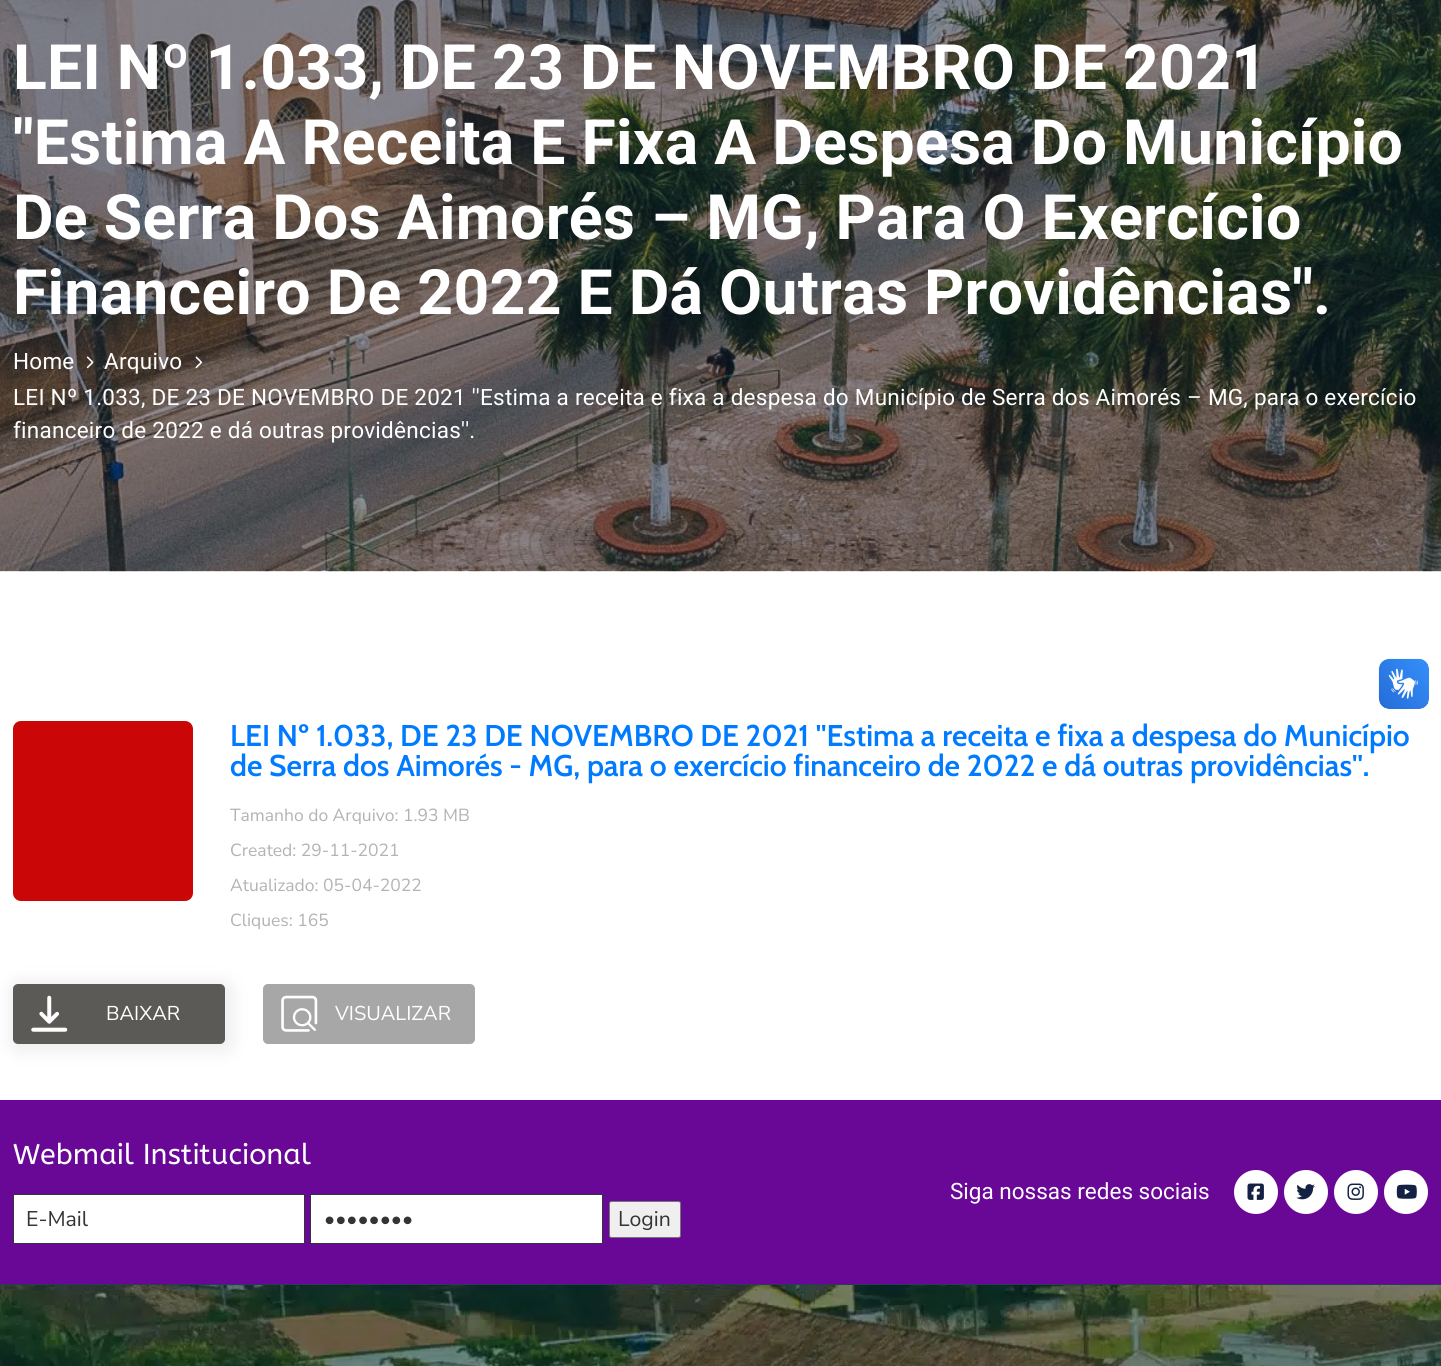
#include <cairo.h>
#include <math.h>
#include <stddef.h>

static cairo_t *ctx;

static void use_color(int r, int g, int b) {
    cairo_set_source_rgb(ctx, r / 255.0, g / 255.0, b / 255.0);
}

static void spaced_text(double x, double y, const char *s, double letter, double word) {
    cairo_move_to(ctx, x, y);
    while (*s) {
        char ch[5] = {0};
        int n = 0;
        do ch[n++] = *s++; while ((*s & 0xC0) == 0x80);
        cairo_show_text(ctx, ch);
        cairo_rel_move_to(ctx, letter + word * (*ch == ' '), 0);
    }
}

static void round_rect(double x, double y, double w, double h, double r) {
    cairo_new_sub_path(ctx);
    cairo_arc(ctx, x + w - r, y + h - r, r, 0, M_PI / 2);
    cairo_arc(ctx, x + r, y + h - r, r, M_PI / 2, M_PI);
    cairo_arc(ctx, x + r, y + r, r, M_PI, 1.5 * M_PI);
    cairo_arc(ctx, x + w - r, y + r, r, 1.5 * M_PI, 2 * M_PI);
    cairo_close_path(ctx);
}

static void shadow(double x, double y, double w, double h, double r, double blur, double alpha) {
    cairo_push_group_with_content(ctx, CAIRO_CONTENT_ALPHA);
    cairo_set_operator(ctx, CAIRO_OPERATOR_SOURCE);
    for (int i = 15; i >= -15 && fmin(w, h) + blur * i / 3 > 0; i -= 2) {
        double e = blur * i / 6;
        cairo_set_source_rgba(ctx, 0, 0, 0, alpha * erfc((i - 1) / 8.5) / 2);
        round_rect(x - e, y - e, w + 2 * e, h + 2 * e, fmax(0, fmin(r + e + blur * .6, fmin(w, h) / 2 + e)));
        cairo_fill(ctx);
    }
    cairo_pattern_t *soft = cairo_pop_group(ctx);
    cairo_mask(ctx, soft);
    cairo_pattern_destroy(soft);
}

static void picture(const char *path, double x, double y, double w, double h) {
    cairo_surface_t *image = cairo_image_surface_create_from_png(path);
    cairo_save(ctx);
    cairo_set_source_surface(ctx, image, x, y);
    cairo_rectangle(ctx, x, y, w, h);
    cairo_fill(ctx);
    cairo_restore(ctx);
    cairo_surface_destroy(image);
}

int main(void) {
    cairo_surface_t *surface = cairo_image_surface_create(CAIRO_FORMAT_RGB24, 1441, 1366);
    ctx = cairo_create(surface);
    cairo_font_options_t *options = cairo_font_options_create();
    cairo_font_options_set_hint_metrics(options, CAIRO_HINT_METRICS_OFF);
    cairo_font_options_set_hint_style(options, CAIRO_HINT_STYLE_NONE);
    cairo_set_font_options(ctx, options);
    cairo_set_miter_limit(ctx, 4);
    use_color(255, 255, 255);
    cairo_paint(ctx);
    picture("img1.png", 0, 0, 1441, 572);
    cairo_select_font_face(ctx, "Roboto", CAIRO_FONT_SLANT_NORMAL, CAIRO_FONT_WEIGHT_BOLD);
    cairo_set_font_size(ctx, 62.5);
    use_color(255, 255, 255);
    spaced_text(13, 89, "LEI Nº 1.033, DE 23 DE NOVEMBRO DE 2021", 0.25, 0);
    spaced_text(13, 164, "''Estima A Receita E Fixa A Despesa Do Município", 0.25, 0);
    spaced_text(13, 239, "De Serra Dos Aimorés – MG, Para O Exercício", 0.25, 0);
    spaced_text(13, 314, "Financeiro De 2022 E Dá Outras Providências''.", 0.25, 0);
    cairo_select_font_face(ctx, "Roboto", CAIRO_FONT_SLANT_NORMAL, CAIRO_FONT_WEIGHT_NORMAL);
    cairo_set_font_size(ctx, 22.5);
    spaced_text(13, 369, "Home", 0.25, 0);
    picture("img2.png", 86, 356, 8, 13);
    spaced_text(104, 369, "Arquivo", 0.25, 0);
    picture("img3.png", 195, 356, 8, 13);
    spaced_text(13, 405, "LEI Nº 1.033, DE 23 DE NOVEMBRO DE 2021 ''Estima a receita e fixa a despesa do Município de Serra dos Aimorés – MG, para o exercício", 0.25, 0);
    spaced_text(13, 438, "financeiro de 2022 e dá outras providências''.", 0.25, 0);
    use_color(203, 6, 6);
    round_rect(13, 721, 180, 180, 8);
    cairo_fill(ctx);
    cairo_select_font_face(ctx, "Cabin SemiBold", CAIRO_FONT_SLANT_NORMAL, CAIRO_FONT_WEIGHT_NORMAL);
    cairo_set_font_size(ctx, 30);
    use_color(0, 123, 255);
    cairo_move_to(ctx, 230, 746);
    cairo_show_text(ctx, "LEI Nº 1.033, DE 23 DE NOVEMBRO DE 2021 ''Estima a receita e fixa a despesa do Município");
    cairo_move_to(ctx, 230, 776);
    cairo_show_text(ctx, "de Serra dos Aimorés - MG, para o exercício financeiro de 2022 e dá outras providências''.");
    cairo_select_font_face(ctx, "Nunito Sans", CAIRO_FONT_SLANT_NORMAL, CAIRO_FONT_WEIGHT_NORMAL);
    cairo_set_font_size(ctx, 17.5);
    use_color(179, 179, 179);
    cairo_move_to(ctx, 230, 821);
    cairo_show_text(ctx, "Tamanho do Arquivo: 1.93 MB");
    cairo_move_to(ctx, 230, 856);
    cairo_show_text(ctx, "Created: 29-11-2021");
    cairo_move_to(ctx, 230, 891);
    cairo_show_text(ctx, "Atualizado: 05-04-2022");
    cairo_move_to(ctx, 230, 926);
    cairo_show_text(ctx, "Cliques: 165");
    use_color(240, 240, 240);
    shadow(9, 980, 225, 73, 11, 7.5, 1);
    use_color(92, 90, 87);
    round_rect(13, 984, 212, 60, 5);
    cairo_fill(ctx);
    picture("img4.png", 31, 995, 37, 37);
    cairo_set_font_size(ctx, 20);
    use_color(255, 255, 255);
    cairo_move_to(ctx, 106, 1020);
    cairo_show_text(ctx, "BAIXAR");
    use_color(167, 167, 167);
    round_rect(263, 984, 212, 60, 5);
    cairo_fill(ctx);
    picture("img5.png", 281, 995, 37, 37);
    use_color(255, 255, 255);
    cairo_move_to(ctx, 335, 1020);
    cairo_show_text(ctx, "VISUALIZAR");
    use_color(105, 7, 151);
    cairo_rectangle(ctx, 0, 1100, 1441, 184);
    cairo_fill(ctx);
    use_color(38, 58, 101);
    cairo_rectangle(ctx, 0, 1284, 1441, 1);
    cairo_fill(ctx);
    cairo_select_font_face(ctx, "ABeeZee", CAIRO_FONT_SLANT_NORMAL, CAIRO_FONT_WEIGHT_NORMAL);
    cairo_set_font_size(ctx, 28.75);
    use_color(255, 255, 255);
    cairo_move_to(ctx, 13, 1164);
    cairo_show_text(ctx, "Webmail Institucional");
    cairo_rectangle(ctx, 13.5, 1194.5, 291, 49);
    cairo_fill_preserve(ctx);
    use_color(52, 52, 52);
    cairo_set_line_width(ctx, 1);
    cairo_stroke(ctx);
    cairo_select_font_face(ctx, "Nunito Sans", CAIRO_FONT_SLANT_NORMAL, CAIRO_FONT_WEIGHT_NORMAL);
    cairo_set_font_size(ctx, 21.25);
    cairo_move_to(ctx, 26, 1226);
    cairo_show_text(ctx, "E-Mail");
    use_color(255, 255, 255);
    cairo_rectangle(ctx, 310.5, 1194.5, 292, 49);
    cairo_fill_preserve(ctx);
    use_color(52, 52, 52);
    cairo_stroke(ctx);
    cairo_move_to(ctx, 324, 1226);
    cairo_show_text(ctx, "••••••••");
    use_color(239, 239, 239);
    round_rect(609.5, 1201.5, 71, 36, 2);
    cairo_fill_preserve(ctx);
    use_color(118, 118, 118);
    cairo_stroke(ctx);
    use_color(52, 52, 52);
    cairo_move_to(ctx, 618, 1226);
    cairo_show_text(ctx, "Login");
    cairo_select_font_face(ctx, "Roboto", CAIRO_FONT_SLANT_NORMAL, CAIRO_FONT_WEIGHT_NORMAL);
    cairo_set_font_size(ctx, 22.5);
    use_color(255, 255, 255);
    cairo_move_to(ctx, 950, 1199);
    cairo_show_text(ctx, "Siga nossas redes sociais");
    cairo_new_path(ctx);
    cairo_arc(ctx, 1256, 1192, 22, 0, 2 * M_PI);
    cairo_fill(ctx);
    picture("img6.png", 1247, 1183, 17, 17);
    cairo_arc(ctx, 1306, 1192, 22, 0, 2 * M_PI);
    cairo_fill(ctx);
    picture("img7.png", 1296, 1184, 19, 16);
    cairo_arc(ctx, 1356, 1192, 22, 0, 2 * M_PI);
    cairo_fill(ctx);
    picture("img8.png", 1347, 1183, 17, 17);
    cairo_arc(ctx, 1406, 1192, 22, 0, 2 * M_PI);
    cairo_fill(ctx);
    picture("img9.png", 1396, 1184, 21, 15);
    picture("img10.png", 0, 1285, 1441, 81);
    picture("img11.png", 1378, 658, 51, 51);
    picture("img12.png", 1379, 659, 50, 50);
    cairo_surface_write_to_png(surface, "result.png");
    cairo_font_options_destroy(options);
    cairo_destroy(ctx);
    cairo_surface_destroy(surface);
    return 0;
}
